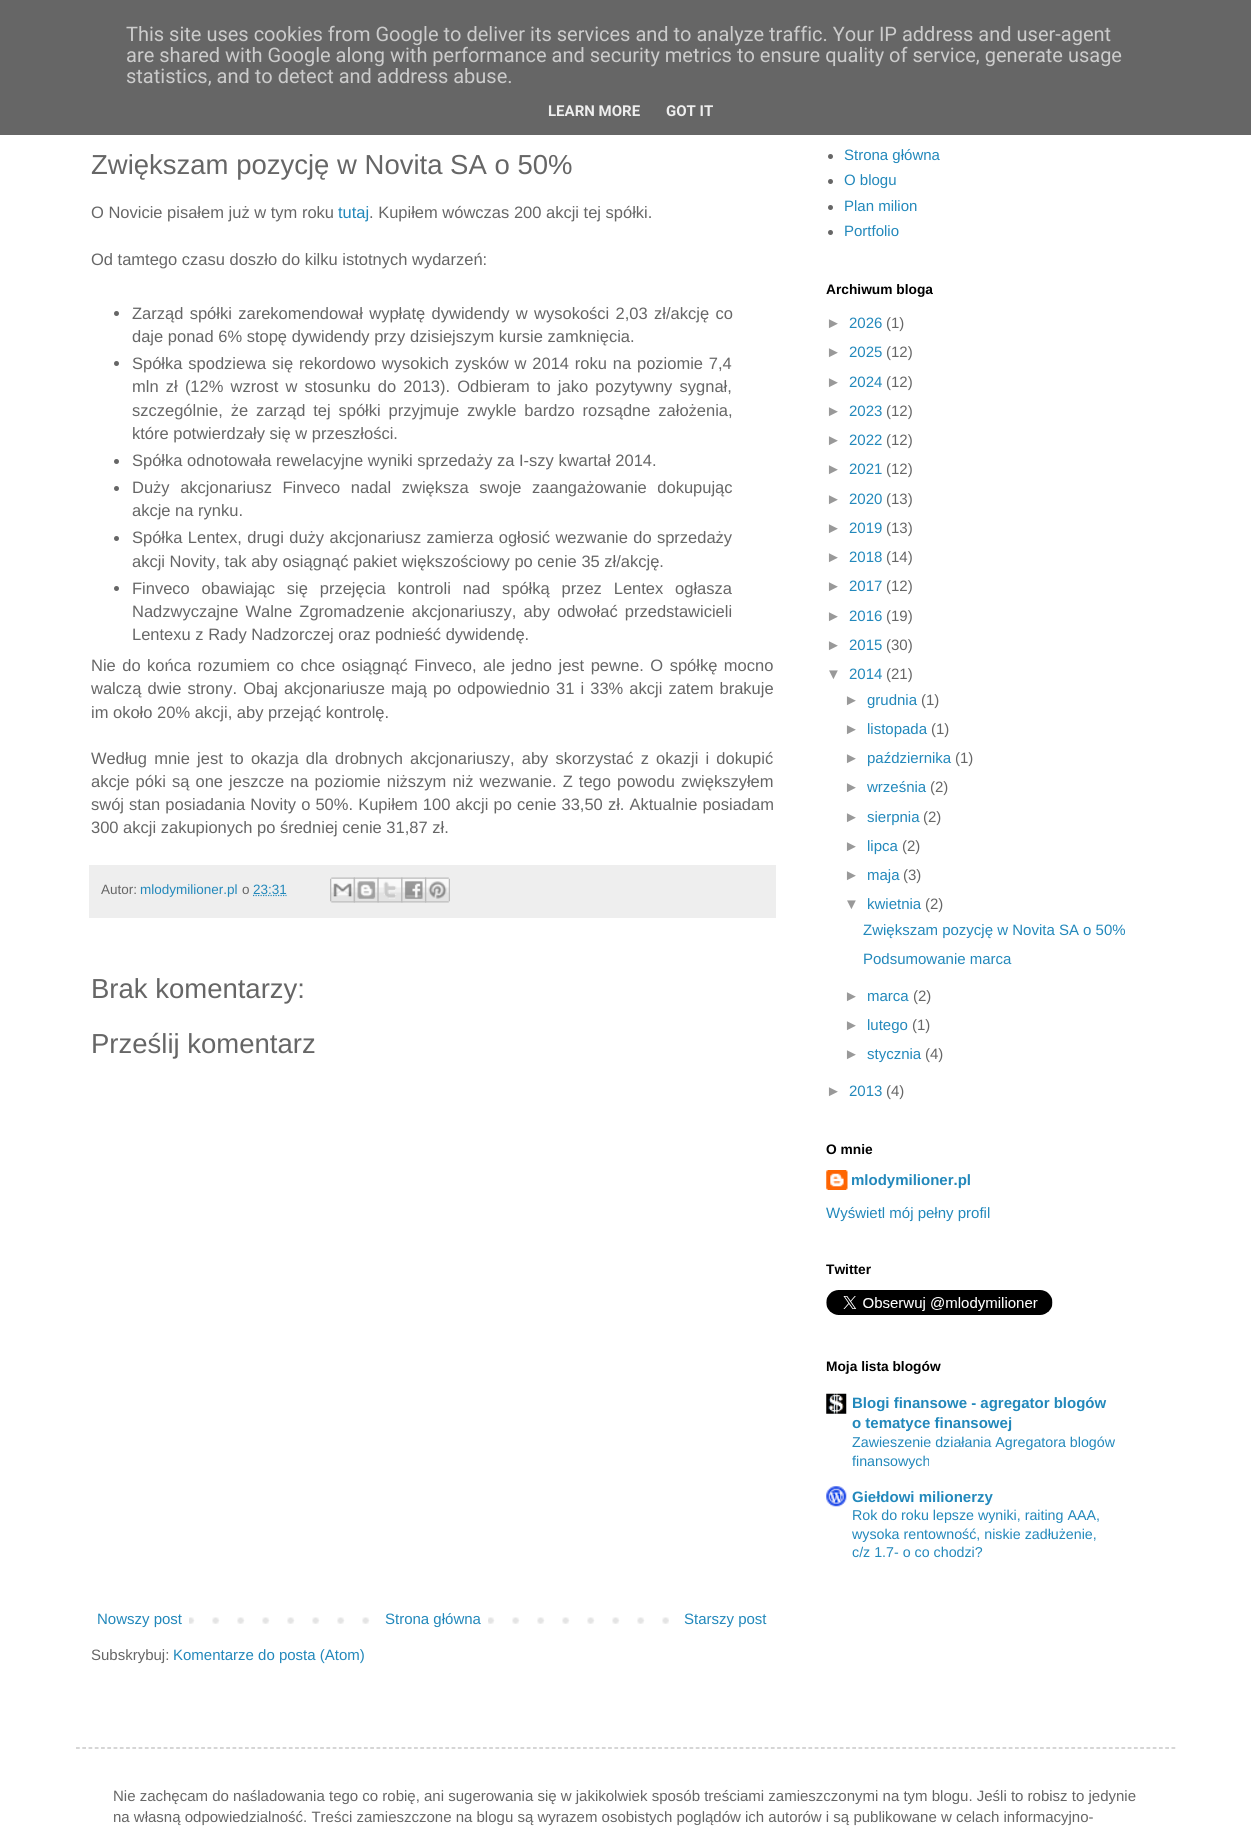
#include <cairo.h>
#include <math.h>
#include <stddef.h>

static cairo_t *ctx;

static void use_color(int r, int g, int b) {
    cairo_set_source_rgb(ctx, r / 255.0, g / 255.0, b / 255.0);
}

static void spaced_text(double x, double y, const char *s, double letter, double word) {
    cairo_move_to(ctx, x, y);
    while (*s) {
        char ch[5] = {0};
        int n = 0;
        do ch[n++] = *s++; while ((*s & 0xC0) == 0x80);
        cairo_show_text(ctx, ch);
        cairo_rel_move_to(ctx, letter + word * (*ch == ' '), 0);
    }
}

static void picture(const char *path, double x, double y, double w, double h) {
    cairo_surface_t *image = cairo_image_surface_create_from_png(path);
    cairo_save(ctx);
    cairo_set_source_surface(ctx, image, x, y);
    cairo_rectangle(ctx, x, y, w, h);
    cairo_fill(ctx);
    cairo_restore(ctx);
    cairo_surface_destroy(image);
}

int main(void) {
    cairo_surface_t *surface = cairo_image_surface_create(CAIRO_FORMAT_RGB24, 1251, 1832);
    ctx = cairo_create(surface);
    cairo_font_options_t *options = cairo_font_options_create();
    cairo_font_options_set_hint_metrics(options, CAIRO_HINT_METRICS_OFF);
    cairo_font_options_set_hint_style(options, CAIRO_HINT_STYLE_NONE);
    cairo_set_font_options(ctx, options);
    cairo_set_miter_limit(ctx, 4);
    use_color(255, 255, 255);
    cairo_paint(ctx);
    use_color(102, 102, 102);
    cairo_rectangle(ctx, 0, 0, 1251, 135);
    cairo_fill(ctx);
    cairo_select_font_face(ctx, "Roboto", CAIRO_FONT_SLANT_NORMAL, CAIRO_FONT_WEIGHT_NORMAL);
    cairo_set_font_size(ctx, 20);
    use_color(204, 204, 204);
    cairo_move_to(ctx, 126, 41);
    cairo_show_text(ctx, "This site uses cookies from Google to deliver its services and to analyze traffic. Your IP address and user-agent");
    cairo_move_to(ctx, 126, 62);
    cairo_show_text(ctx, "are shared with Google along with performance and security metrics to ensure quality of service, generate usage");
    cairo_move_to(ctx, 126, 83);
    cairo_show_text(ctx, "statistics, and to detect and address abuse.");
    cairo_select_font_face(ctx, "Roboto", CAIRO_FONT_SLANT_NORMAL, CAIRO_FONT_WEIGHT_BOLD);
    cairo_set_font_size(ctx, 15);
    use_color(238, 238, 238);
    cairo_move_to(ctx, 548, 116);
    cairo_show_text(ctx, "LEARN MORE");
    cairo_move_to(ctx, 666, 116);
    cairo_show_text(ctx, "GOT IT");
    cairo_select_font_face(ctx, "Liberation Sans", CAIRO_FONT_SLANT_NORMAL, CAIRO_FONT_WEIGHT_NORMAL);
    cairo_set_font_size(ctx, 27.5);
    use_color(102, 102, 102);
    cairo_move_to(ctx, 91, 174);
    cairo_show_text(ctx, "Zwiększam pozycję w Novita SA o 50%");
    cairo_set_font_size(ctx, 16.5);
    cairo_move_to(ctx, 91, 218);
    cairo_show_text(ctx, "O Novicie pisałem już w tym roku");
    use_color(34, 136, 187);
    cairo_move_to(ctx, 338, 218);
    cairo_show_text(ctx, "tutaj");
    use_color(102, 102, 102);
    cairo_move_to(ctx, 369, 218);
    cairo_show_text(ctx, ". Kupiłem wówczas 200 akcji tej spółki.");
    cairo_move_to(ctx, 91, 265);
    cairo_show_text(ctx, "Od tamtego czasu doszło do kilku istotnych wydarzeń:");
    cairo_new_path(ctx);
    cairo_arc(ctx, 116.5, 313.5, 2.5, 0, 2 * M_PI);
    cairo_fill(ctx);
    spaced_text(132, 319, "Zarząd spółki zarekomendował wypłatę dywidendy w wysokości 2,03 zł/akcję co", 0, 1.75);
    cairo_move_to(ctx, 132, 342);
    cairo_show_text(ctx, "daje ponad 6% stopę dywidendy przy dzisiejszym kursie zamknięcia.");
    cairo_new_path(ctx);
    cairo_arc(ctx, 116.5, 363.5, 2.5, 0, 2 * M_PI);
    cairo_fill(ctx);
    spaced_text(132, 369, "Spółka spodziewa się rekordowo wysokich zysków w 2014 roku na poziomie 7,4", 0, 1.25);
    spaced_text(132, 392, "mln zł (12% wzrost w stosunku do 2013). Odbieram to jako pozytywny sygnał,", 0, 2.6);
    spaced_text(132, 416, "szczególnie, że zarząd tej spółki przyjmuje zwykle bardzo rozsądne założenia,", 0, 3.25);
    cairo_move_to(ctx, 132, 439);
    cairo_show_text(ctx, "które potwierdzały się w przeszłości.");
    cairo_new_path(ctx);
    cairo_arc(ctx, 116.5, 461.5, 2.5, 0, 2 * M_PI);
    cairo_fill(ctx);
    cairo_move_to(ctx, 132, 466);
    cairo_show_text(ctx, "Spółka odnotowała rewelacyjne wyniki sprzedaży za I-szy kwartał 2014.");
    cairo_new_path(ctx);
    cairo_arc(ctx, 116.5, 488.5, 2.5, 0, 2 * M_PI);
    cairo_fill(ctx);
    spaced_text(132, 493, "Duży akcjonariusz Finveco nadal zwiększa swoje zaangażowanie dokupując", 0, 6);
    cairo_move_to(ctx, 132, 516);
    cairo_show_text(ctx, "akcje na rynku.");
    cairo_new_path(ctx);
    cairo_arc(ctx, 116.5, 538.5, 2.5, 0, 2 * M_PI);
    cairo_fill(ctx);
    spaced_text(132, 543, "Spółka Lentex, drugi duży akcjonariusz zamierza ogłosić wezwanie do sprzedaży", 0, 0.75);
    cairo_move_to(ctx, 132, 567);
    cairo_show_text(ctx, "akcji Novity, tak aby osiągnąć pakiet większościowy po cenie 35 zł/akcję.");
    cairo_new_path(ctx);
    cairo_arc(ctx, 116.5, 588.5, 2.5, 0, 2 * M_PI);
    cairo_fill(ctx);
    spaced_text(132, 594, "Finveco obawiając się przejęcia kontroli nad spółką przez Lentex ogłasza", 0, 7.25);
    spaced_text(132, 617, "Nadzwyczajne Walne Zgromadzenie akcjonariuszy, aby odwołać przedstawicieli", 0, 2.5);
    cairo_move_to(ctx, 132, 640);
    cairo_show_text(ctx, "Lentexu z Rady Nadzorczej oraz podnieść dywidendę.");
    spaced_text(91, 671, "Nie do końca rozumiem co chce osiągnąć Finveco, ale jedno jest pewne. O spółkę mocno", 0, 1.9);
    spaced_text(91, 694, "walczą dwie strony. Obaj akcjonariusze mają po odpowiednio 31 i 33% akcji zatem brakuje", 0, 1.5);
    cairo_move_to(ctx, 91, 718);
    cairo_show_text(ctx, "im około 20% akcji, aby przejąć kontrolę.");
    spaced_text(91, 764, "Według mnie jest to okazja dla drobnych akcjonariuszy, aby skorzystać z okazji i dokupić", 0, 2.6);
    spaced_text(91, 787, "akcje póki są one jeszcze na poziomie niższym niż wezwanie. Z tego powodu zwiększyłem", 0, 1.5);
    spaced_text(91, 810, "swój stan posiadania Novity o 50%. Kupiłem 100 akcji po cenie 33,50 zł. Aktualnie posiadam", 0, 0.5);
    cairo_move_to(ctx, 91, 833);
    cairo_show_text(ctx, "300 akcji zakupionych po średniej cenie 31,87 zł.");
    use_color(238, 238, 238);
    cairo_rectangle(ctx, 89, 865, 687, 53);
    cairo_fill(ctx);
    cairo_set_font_size(ctx, 13.5);
    use_color(102, 102, 102);
    cairo_move_to(ctx, 101, 894);
    cairo_show_text(ctx, "Autor:");
    use_color(34, 136, 187);
    cairo_move_to(ctx, 140, 894);
    cairo_show_text(ctx, "mlodymilioner.pl");
    use_color(102, 102, 102);
    cairo_move_to(ctx, 242, 894);
    cairo_show_text(ctx, "o");
    cairo_new_path(ctx);
    cairo_move_to(ctx, 253, 895.5);
    cairo_line_to(ctx, 286.5, 895.5);
    use_color(34, 136, 187);
    cairo_set_line_width(ctx, 1.2);
    cairo_set_dash(ctx, (double[]){1.25, 1.25}, 2, 0);
    cairo_stroke(ctx);
    cairo_move_to(ctx, 253, 894);
    cairo_show_text(ctx, "23:31");
    picture("img1.png", 330, 877, 25, 26);
    picture("img2.png", 353, 877, 26, 26);
    picture("img3.png", 377, 877, 26, 26);
    picture("img4.png", 401, 877, 26, 26);
    picture("img5.png", 425, 877, 25, 26);
    cairo_set_font_size(ctx, 27.5);
    use_color(102, 102, 102);
    cairo_move_to(ctx, 91, 998);
    cairo_show_text(ctx, "Brak komentarzy:");
    cairo_move_to(ctx, 91, 1053);
    cairo_show_text(ctx, "Prześlij komentarz");
    picture("img6.png", 189, 1617, 480, 7);
    cairo_set_font_size(ctx, 15);
    use_color(34, 136, 187);
    cairo_move_to(ctx, 97, 1624);
    cairo_show_text(ctx, "Nowszy post");
    use_color(255, 255, 255);
    cairo_rectangle(ctx, 387, 1617, 101, 7);
    cairo_fill(ctx);
    use_color(34, 136, 187);
    cairo_move_to(ctx, 385, 1624);
    cairo_show_text(ctx, "Strona główna");
    cairo_move_to(ctx, 684, 1624);
    cairo_show_text(ctx, "Starszy post");
    use_color(102, 102, 102);
    cairo_move_to(ctx, 91, 1660);
    cairo_show_text(ctx, "Subskrybuj:");
    use_color(34, 136, 187);
    cairo_move_to(ctx, 173, 1660);
    cairo_show_text(ctx, "Komentarze do posta (Atom)");
    use_color(102, 102, 102);
    cairo_new_path(ctx);
    cairo_arc(ctx, 830.5, 156.5, 2.5, 0, 2 * M_PI);
    cairo_fill(ctx);
    use_color(34, 136, 187);
    cairo_move_to(ctx, 844, 160);
    cairo_show_text(ctx, "Strona główna");
    use_color(102, 102, 102);
    cairo_new_path(ctx);
    cairo_arc(ctx, 830.5, 181.5, 2.5, 0, 2 * M_PI);
    cairo_fill(ctx);
    use_color(34, 136, 187);
    cairo_move_to(ctx, 844, 185);
    cairo_show_text(ctx, "O blogu");
    use_color(102, 102, 102);
    cairo_new_path(ctx);
    cairo_arc(ctx, 830.5, 207.5, 2.5, 0, 2 * M_PI);
    cairo_fill(ctx);
    use_color(34, 136, 187);
    cairo_move_to(ctx, 844, 211);
    cairo_show_text(ctx, "Plan milion");
    use_color(102, 102, 102);
    cairo_new_path(ctx);
    cairo_arc(ctx, 830.5, 232.5, 2.5, 0, 2 * M_PI);
    cairo_fill(ctx);
    use_color(34, 136, 187);
    cairo_move_to(ctx, 844, 236);
    cairo_show_text(ctx, "Portfolio");
    cairo_select_font_face(ctx, "Liberation Sans", CAIRO_FONT_SLANT_NORMAL, CAIRO_FONT_WEIGHT_BOLD);
    cairo_set_font_size(ctx, 13.75);
    use_color(0, 0, 0);
    cairo_move_to(ctx, 826, 294);
    cairo_show_text(ctx, "Archiwum bloga");
    cairo_select_font_face(ctx, "Liberation Sans", CAIRO_FONT_SLANT_NORMAL, CAIRO_FONT_WEIGHT_NORMAL);
    cairo_set_font_size(ctx, 15);
    use_color(153, 153, 153);
    cairo_move_to(ctx, 826, 328);
    cairo_show_text(ctx, "►");
    use_color(34, 136, 187);
    cairo_move_to(ctx, 849, 328);
    cairo_show_text(ctx, "2026");
    use_color(102, 102, 102);
    cairo_move_to(ctx, 886, 328);
    cairo_show_text(ctx, "(1)");
    use_color(153, 153, 153);
    cairo_move_to(ctx, 826, 357);
    cairo_show_text(ctx, "►");
    use_color(34, 136, 187);
    cairo_move_to(ctx, 849, 357);
    cairo_show_text(ctx, "2025");
    use_color(102, 102, 102);
    cairo_move_to(ctx, 886, 357);
    cairo_show_text(ctx, "(12)");
    use_color(153, 153, 153);
    cairo_move_to(ctx, 826, 387);
    cairo_show_text(ctx, "►");
    use_color(34, 136, 187);
    cairo_move_to(ctx, 849, 387);
    cairo_show_text(ctx, "2024");
    use_color(102, 102, 102);
    cairo_move_to(ctx, 886, 387);
    cairo_show_text(ctx, "(12)");
    use_color(153, 153, 153);
    cairo_move_to(ctx, 826, 416);
    cairo_show_text(ctx, "►");
    use_color(34, 136, 187);
    cairo_move_to(ctx, 849, 416);
    cairo_show_text(ctx, "2023");
    use_color(102, 102, 102);
    cairo_move_to(ctx, 886, 416);
    cairo_show_text(ctx, "(12)");
    use_color(153, 153, 153);
    cairo_move_to(ctx, 826, 445);
    cairo_show_text(ctx, "►");
    use_color(34, 136, 187);
    cairo_move_to(ctx, 849, 445);
    cairo_show_text(ctx, "2022");
    use_color(102, 102, 102);
    cairo_move_to(ctx, 886, 445);
    cairo_show_text(ctx, "(12)");
    use_color(153, 153, 153);
    cairo_move_to(ctx, 826, 474);
    cairo_show_text(ctx, "►");
    use_color(34, 136, 187);
    cairo_move_to(ctx, 849, 474);
    cairo_show_text(ctx, "2021");
    use_color(102, 102, 102);
    cairo_move_to(ctx, 886, 474);
    cairo_show_text(ctx, "(12)");
    use_color(153, 153, 153);
    cairo_move_to(ctx, 826, 504);
    cairo_show_text(ctx, "►");
    use_color(34, 136, 187);
    cairo_move_to(ctx, 849, 504);
    cairo_show_text(ctx, "2020");
    use_color(102, 102, 102);
    cairo_move_to(ctx, 886, 504);
    cairo_show_text(ctx, "(13)");
    use_color(153, 153, 153);
    cairo_move_to(ctx, 826, 533);
    cairo_show_text(ctx, "►");
    use_color(34, 136, 187);
    cairo_move_to(ctx, 849, 533);
    cairo_show_text(ctx, "2019");
    use_color(102, 102, 102);
    cairo_move_to(ctx, 886, 533);
    cairo_show_text(ctx, "(13)");
    use_color(153, 153, 153);
    cairo_move_to(ctx, 826, 562);
    cairo_show_text(ctx, "►");
    use_color(34, 136, 187);
    cairo_move_to(ctx, 849, 562);
    cairo_show_text(ctx, "2018");
    use_color(102, 102, 102);
    cairo_move_to(ctx, 886, 562);
    cairo_show_text(ctx, "(14)");
    use_color(153, 153, 153);
    cairo_move_to(ctx, 826, 591);
    cairo_show_text(ctx, "►");
    use_color(34, 136, 187);
    cairo_move_to(ctx, 849, 591);
    cairo_show_text(ctx, "2017");
    use_color(102, 102, 102);
    cairo_move_to(ctx, 886, 591);
    cairo_show_text(ctx, "(12)");
    use_color(153, 153, 153);
    cairo_move_to(ctx, 826, 621);
    cairo_show_text(ctx, "►");
    use_color(34, 136, 187);
    cairo_move_to(ctx, 849, 621);
    cairo_show_text(ctx, "2016");
    use_color(102, 102, 102);
    cairo_move_to(ctx, 886, 621);
    cairo_show_text(ctx, "(19)");
    use_color(153, 153, 153);
    cairo_move_to(ctx, 826, 650);
    cairo_show_text(ctx, "►");
    use_color(34, 136, 187);
    cairo_move_to(ctx, 849, 650);
    cairo_show_text(ctx, "2015");
    use_color(102, 102, 102);
    cairo_move_to(ctx, 886, 650);
    cairo_show_text(ctx, "(30)");
    use_color(153, 153, 153);
    cairo_move_to(ctx, 826, 679);
    cairo_show_text(ctx, "▼");
    use_color(34, 136, 187);
    cairo_move_to(ctx, 849, 679);
    cairo_show_text(ctx, "2014");
    use_color(102, 102, 102);
    cairo_move_to(ctx, 886, 679);
    cairo_show_text(ctx, "(21)");
    use_color(153, 153, 153);
    cairo_move_to(ctx, 844, 705);
    cairo_show_text(ctx, "►");
    use_color(34, 136, 187);
    cairo_move_to(ctx, 867, 705);
    cairo_show_text(ctx, "grudnia");
    use_color(102, 102, 102);
    cairo_move_to(ctx, 921, 705);
    cairo_show_text(ctx, "(1)");
    use_color(153, 153, 153);
    cairo_move_to(ctx, 844, 734);
    cairo_show_text(ctx, "►");
    use_color(34, 136, 187);
    cairo_move_to(ctx, 867, 734);
    cairo_show_text(ctx, "listopada");
    use_color(102, 102, 102);
    cairo_move_to(ctx, 931, 734);
    cairo_show_text(ctx, "(1)");
    use_color(153, 153, 153);
    cairo_move_to(ctx, 844, 763);
    cairo_show_text(ctx, "►");
    use_color(34, 136, 187);
    cairo_move_to(ctx, 867, 763);
    cairo_show_text(ctx, "października");
    use_color(102, 102, 102);
    cairo_move_to(ctx, 955, 763);
    cairo_show_text(ctx, "(1)");
    use_color(153, 153, 153);
    cairo_move_to(ctx, 844, 792);
    cairo_show_text(ctx, "►");
    use_color(34, 136, 187);
    cairo_move_to(ctx, 867, 792);
    cairo_show_text(ctx, "września");
    use_color(102, 102, 102);
    cairo_move_to(ctx, 930, 792);
    cairo_show_text(ctx, "(2)");
    use_color(153, 153, 153);
    cairo_move_to(ctx, 844, 822);
    cairo_show_text(ctx, "►");
    use_color(34, 136, 187);
    cairo_move_to(ctx, 867, 822);
    cairo_show_text(ctx, "sierpnia");
    use_color(102, 102, 102);
    cairo_move_to(ctx, 923, 822);
    cairo_show_text(ctx, "(2)");
    use_color(153, 153, 153);
    cairo_move_to(ctx, 844, 851);
    cairo_show_text(ctx, "►");
    use_color(34, 136, 187);
    cairo_move_to(ctx, 867, 851);
    cairo_show_text(ctx, "lipca");
    use_color(102, 102, 102);
    cairo_move_to(ctx, 902, 851);
    cairo_show_text(ctx, "(2)");
    use_color(153, 153, 153);
    cairo_move_to(ctx, 844, 880);
    cairo_show_text(ctx, "►");
    use_color(34, 136, 187);
    cairo_move_to(ctx, 867, 880);
    cairo_show_text(ctx, "maja");
    use_color(102, 102, 102);
    cairo_move_to(ctx, 903, 880);
    cairo_show_text(ctx, "(3)");
    use_color(153, 153, 153);
    cairo_move_to(ctx, 844, 909);
    cairo_show_text(ctx, "▼");
    use_color(34, 136, 187);
    cairo_move_to(ctx, 867, 909);
    cairo_show_text(ctx, "kwietnia");
    use_color(102, 102, 102);
    cairo_move_to(ctx, 925, 909);
    cairo_show_text(ctx, "(2)");
    use_color(34, 136, 187);
    cairo_move_to(ctx, 863, 935);
    cairo_show_text(ctx, "Zwiększam pozycję w Novita SA o 50%");
    cairo_move_to(ctx, 863, 964);
    cairo_show_text(ctx, "Podsumowanie marca");
    use_color(153, 153, 153);
    cairo_move_to(ctx, 844, 1001);
    cairo_show_text(ctx, "►");
    use_color(34, 136, 187);
    cairo_move_to(ctx, 867, 1001);
    cairo_show_text(ctx, "marca");
    use_color(102, 102, 102);
    cairo_move_to(ctx, 913, 1001);
    cairo_show_text(ctx, "(2)");
    use_color(153, 153, 153);
    cairo_move_to(ctx, 844, 1030);
    cairo_show_text(ctx, "►");
    use_color(34, 136, 187);
    cairo_move_to(ctx, 867, 1030);
    cairo_show_text(ctx, "lutego");
    use_color(102, 102, 102);
    cairo_move_to(ctx, 912, 1030);
    cairo_show_text(ctx, "(1)");
    use_color(153, 153, 153);
    cairo_move_to(ctx, 844, 1059);
    cairo_show_text(ctx, "►");
    use_color(34, 136, 187);
    cairo_move_to(ctx, 867, 1059);
    cairo_show_text(ctx, "stycznia");
    use_color(102, 102, 102);
    cairo_move_to(ctx, 925, 1059);
    cairo_show_text(ctx, "(4)");
    use_color(153, 153, 153);
    cairo_move_to(ctx, 826, 1096);
    cairo_show_text(ctx, "►");
    use_color(34, 136, 187);
    cairo_move_to(ctx, 849, 1096);
    cairo_show_text(ctx, "2013");
    use_color(102, 102, 102);
    cairo_move_to(ctx, 886, 1096);
    cairo_show_text(ctx, "(4)");
    cairo_select_font_face(ctx, "Liberation Sans", CAIRO_FONT_SLANT_NORMAL, CAIRO_FONT_WEIGHT_BOLD);
    cairo_set_font_size(ctx, 13.75);
    use_color(0, 0, 0);
    cairo_move_to(ctx, 826, 1154);
    cairo_show_text(ctx, "O mnie");
    picture("img7.png", 826, 1170, 22, 20);
    cairo_set_font_size(ctx, 15);
    use_color(34, 136, 187);
    cairo_move_to(ctx, 851, 1185);
    cairo_show_text(ctx, "mlodymilioner.pl");
    cairo_select_font_face(ctx, "Liberation Sans", CAIRO_FONT_SLANT_NORMAL, CAIRO_FONT_WEIGHT_NORMAL);
    cairo_move_to(ctx, 826, 1218);
    cairo_show_text(ctx, "Wyświetl mój pełny profil");
    cairo_select_font_face(ctx, "Liberation Sans", CAIRO_FONT_SLANT_NORMAL, CAIRO_FONT_WEIGHT_BOLD);
    cairo_set_font_size(ctx, 13.75);
    use_color(0, 0, 0);
    cairo_move_to(ctx, 826, 1274);
    cairo_show_text(ctx, "Twitter");
    picture("img8.png", 826, 1290, 227, 25);
    cairo_move_to(ctx, 826, 1371);
    cairo_show_text(ctx, "Moja lista blogów");
    picture("img9.png", 826, 1393, 21, 21);
    cairo_set_font_size(ctx, 15);
    use_color(34, 136, 187);
    cairo_move_to(ctx, 852, 1408);
    cairo_show_text(ctx, "Blogi finansowe - agregator blogów");
    cairo_move_to(ctx, 852, 1428);
    cairo_show_text(ctx, "o tematyce finansowej");
    cairo_select_font_face(ctx, "Liberation Sans", CAIRO_FONT_SLANT_NORMAL, CAIRO_FONT_WEIGHT_NORMAL);
    cairo_set_font_size(ctx, 14.25);
    cairo_move_to(ctx, 852, 1447);
    cairo_show_text(ctx, "Zawieszenie działania Agregatora blogów");
    cairo_move_to(ctx, 852, 1466);
    cairo_show_text(ctx, "finansowych");
    picture("img10.png", 826, 1486, 21, 21);
    cairo_select_font_face(ctx, "Liberation Sans", CAIRO_FONT_SLANT_NORMAL, CAIRO_FONT_WEIGHT_BOLD);
    cairo_set_font_size(ctx, 15);
    cairo_move_to(ctx, 852, 1502);
    cairo_show_text(ctx, "Giełdowi milionerzy");
    cairo_select_font_face(ctx, "Liberation Sans", CAIRO_FONT_SLANT_NORMAL, CAIRO_FONT_WEIGHT_NORMAL);
    cairo_set_font_size(ctx, 14.25);
    cairo_move_to(ctx, 852, 1520);
    cairo_show_text(ctx, "Rok do roku lepsze wyniki, raiting AAA,");
    cairo_move_to(ctx, 852, 1539);
    cairo_show_text(ctx, "wysoka rentowność, niskie zadłużenie,");
    cairo_move_to(ctx, 852, 1557);
    cairo_show_text(ctx, "c/z 1.7- o co chodzi?");
    cairo_new_path(ctx);
    cairo_move_to(ctx, 76, 1748);
    cairo_line_to(ctx, 1176, 1748);
    use_color(187, 187, 187);
    cairo_set_dash(ctx, (double[]){3.75, 2.51}, 2, 0);
    cairo_stroke(ctx);
    cairo_set_font_size(ctx, 15);
    use_color(102, 102, 102);
    cairo_move_to(ctx, 113, 1801);
    cairo_show_text(ctx, "Nie zachęcam do naśladowania tego co robię, ani sugerowania się w jakikolwiek sposób treściami zamieszczonymi na tym blogu. Jeśli to robisz to jedynie");
    cairo_move_to(ctx, 113, 1822);
    cairo_show_text(ctx, "na własną odpowiedzialność. Treści zamieszczone na blogu są wyrazem osobistych poglądów ich autorów i są publikowane w celach informacyjno-");
    cairo_surface_write_to_png(surface, "result.png");
    cairo_font_options_destroy(options);
    cairo_destroy(ctx);
    cairo_surface_destroy(surface);
    return 0;
}
